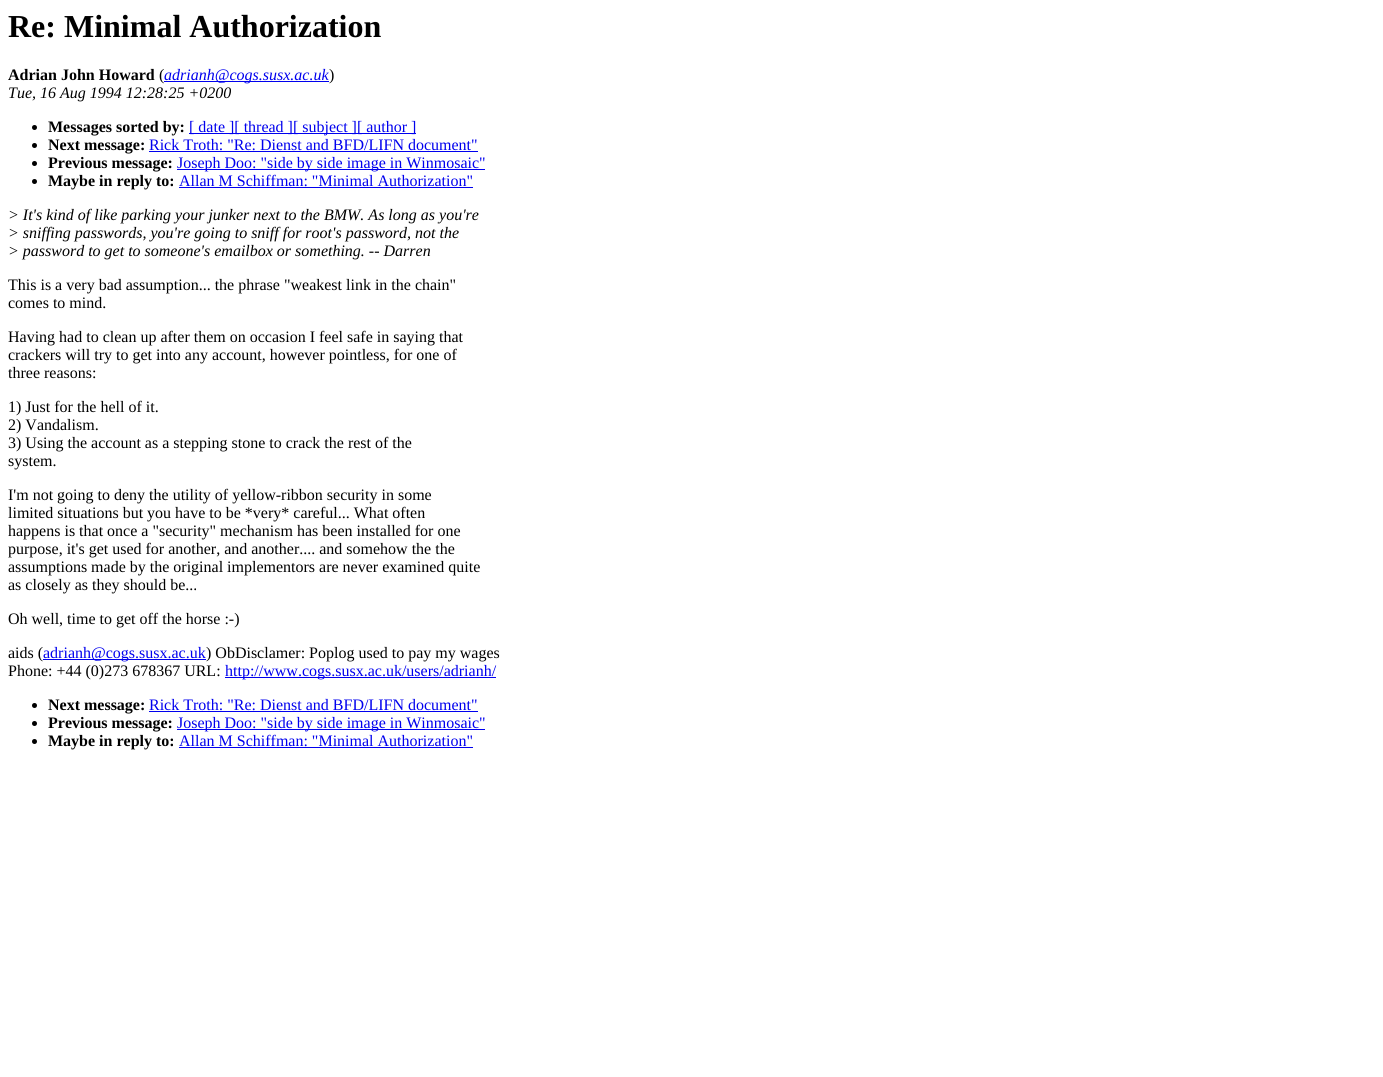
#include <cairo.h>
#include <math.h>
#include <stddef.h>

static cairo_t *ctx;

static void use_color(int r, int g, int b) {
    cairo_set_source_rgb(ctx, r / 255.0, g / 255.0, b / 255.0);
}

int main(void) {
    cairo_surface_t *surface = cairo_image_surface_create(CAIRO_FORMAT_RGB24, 1383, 1077);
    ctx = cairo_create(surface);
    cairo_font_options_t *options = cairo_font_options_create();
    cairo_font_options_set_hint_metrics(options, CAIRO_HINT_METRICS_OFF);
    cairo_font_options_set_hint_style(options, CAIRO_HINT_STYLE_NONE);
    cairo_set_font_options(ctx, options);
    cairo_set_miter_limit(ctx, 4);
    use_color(255, 255, 255);
    cairo_paint(ctx);
    cairo_select_font_face(ctx, "Liberation Serif", CAIRO_FONT_SLANT_NORMAL, CAIRO_FONT_WEIGHT_BOLD);
    cairo_set_font_size(ctx, 32);
    use_color(0, 0, 0);
    cairo_move_to(ctx, 8, 37);
    cairo_show_text(ctx, "Re: Minimal Authorization");
    cairo_set_font_size(ctx, 16);
    cairo_move_to(ctx, 8, 80);
    cairo_show_text(ctx, "Adrian John Howard");
    cairo_select_font_face(ctx, "Liberation Serif", CAIRO_FONT_SLANT_NORMAL, CAIRO_FONT_WEIGHT_NORMAL);
    cairo_move_to(ctx, 159, 80);
    cairo_show_text(ctx, "(");
    use_color(0, 0, 238);
    cairo_rectangle(ctx, 164, 81, 165, 1);
    cairo_fill(ctx);
    cairo_select_font_face(ctx, "Liberation Serif", CAIRO_FONT_SLANT_ITALIC, CAIRO_FONT_WEIGHT_NORMAL);
    cairo_move_to(ctx, 164, 80);
    cairo_show_text(ctx, "adrianh@cogs.susx.ac.uk");
    cairo_select_font_face(ctx, "Liberation Serif", CAIRO_FONT_SLANT_NORMAL, CAIRO_FONT_WEIGHT_NORMAL);
    use_color(0, 0, 0);
    cairo_move_to(ctx, 329, 80);
    cairo_show_text(ctx, ")");
    cairo_select_font_face(ctx, "Liberation Serif", CAIRO_FONT_SLANT_ITALIC, CAIRO_FONT_WEIGHT_NORMAL);
    cairo_move_to(ctx, 8, 98);
    cairo_show_text(ctx, "Tue, 16 Aug 1994 12:28:25 +0200");
    cairo_new_path(ctx);
    cairo_arc(ctx, 34.5, 127.5, 2.5, 0, 2 * M_PI);
    cairo_fill(ctx);
    cairo_select_font_face(ctx, "Liberation Serif", CAIRO_FONT_SLANT_NORMAL, CAIRO_FONT_WEIGHT_BOLD);
    cairo_move_to(ctx, 48, 132);
    cairo_show_text(ctx, "Messages sorted by:");
    use_color(0, 0, 238);
    cairo_rectangle(ctx, 189, 133, 227, 1);
    cairo_fill(ctx);
    cairo_select_font_face(ctx, "Liberation Serif", CAIRO_FONT_SLANT_NORMAL, CAIRO_FONT_WEIGHT_NORMAL);
    cairo_move_to(ctx, 189, 132);
    cairo_show_text(ctx, "[ date ][ thread ][ subject ][ author ]");
    use_color(0, 0, 0);
    cairo_new_path(ctx);
    cairo_arc(ctx, 34.5, 145.5, 2.5, 0, 2 * M_PI);
    cairo_fill(ctx);
    cairo_select_font_face(ctx, "Liberation Serif", CAIRO_FONT_SLANT_NORMAL, CAIRO_FONT_WEIGHT_BOLD);
    cairo_move_to(ctx, 48, 150);
    cairo_show_text(ctx, "Next message:");
    cairo_select_font_face(ctx, "Liberation Serif", CAIRO_FONT_SLANT_NORMAL, CAIRO_FONT_WEIGHT_NORMAL);
    use_color(0, 0, 238);
    cairo_move_to(ctx, 149, 150);
    cairo_show_text(ctx, "Rick Troth: \"Re: Dienst and BFD/LIFN document\"");
    cairo_rectangle(ctx, 149, 151, 329, 1);
    cairo_fill(ctx);
    use_color(0, 0, 0);
    cairo_arc(ctx, 34.5, 163.5, 2.5, 0, 2 * M_PI);
    cairo_fill(ctx);
    cairo_select_font_face(ctx, "Liberation Serif", CAIRO_FONT_SLANT_NORMAL, CAIRO_FONT_WEIGHT_BOLD);
    cairo_move_to(ctx, 48, 168);
    cairo_show_text(ctx, "Previous message:");
    use_color(0, 0, 238);
    cairo_rectangle(ctx, 177, 169, 308, 1);
    cairo_fill(ctx);
    cairo_select_font_face(ctx, "Liberation Serif", CAIRO_FONT_SLANT_NORMAL, CAIRO_FONT_WEIGHT_NORMAL);
    cairo_move_to(ctx, 177, 168);
    cairo_show_text(ctx, "Joseph Doo: \"side by side image in Winmosaic\"");
    use_color(0, 0, 0);
    cairo_new_path(ctx);
    cairo_arc(ctx, 34.5, 181.5, 2.5, 0, 2 * M_PI);
    cairo_fill(ctx);
    cairo_select_font_face(ctx, "Liberation Serif", CAIRO_FONT_SLANT_NORMAL, CAIRO_FONT_WEIGHT_BOLD);
    cairo_move_to(ctx, 48, 186);
    cairo_show_text(ctx, "Maybe in reply to:");
    cairo_select_font_face(ctx, "Liberation Serif", CAIRO_FONT_SLANT_NORMAL, CAIRO_FONT_WEIGHT_NORMAL);
    use_color(0, 0, 238);
    cairo_move_to(ctx, 179, 186);
    cairo_show_text(ctx, "Allan M Schiffman: \"Minimal Authorization\"");
    cairo_rectangle(ctx, 179, 187, 294, 1);
    cairo_fill(ctx);
    cairo_select_font_face(ctx, "Liberation Serif", CAIRO_FONT_SLANT_ITALIC, CAIRO_FONT_WEIGHT_NORMAL);
    use_color(0, 0, 0);
    cairo_move_to(ctx, 8, 220);
    cairo_show_text(ctx, "> It's kind of like parking your junker next to the BMW. As long as you're");
    cairo_move_to(ctx, 8, 238);
    cairo_show_text(ctx, "> sniffing passwords, you're going to sniff for root's password, not the");
    cairo_move_to(ctx, 8, 256);
    cairo_show_text(ctx, "> password to get to someone's emailbox or something. -- Darren");
    cairo_select_font_face(ctx, "Liberation Serif", CAIRO_FONT_SLANT_NORMAL, CAIRO_FONT_WEIGHT_NORMAL);
    cairo_move_to(ctx, 8, 290);
    cairo_show_text(ctx, "This is a very bad assumption... the phrase \"weakest link in the chain\"");
    cairo_move_to(ctx, 8, 308);
    cairo_show_text(ctx, "comes to mind.");
    cairo_move_to(ctx, 8, 342);
    cairo_show_text(ctx, "Having had to clean up after them on occasion I feel safe in saying that");
    cairo_move_to(ctx, 8, 360);
    cairo_show_text(ctx, "crackers will try to get into any account, however pointless, for one of");
    cairo_move_to(ctx, 8, 378);
    cairo_show_text(ctx, "three reasons:");
    cairo_move_to(ctx, 8, 412);
    cairo_show_text(ctx, "1) Just for the hell of it.");
    cairo_move_to(ctx, 8, 430);
    cairo_show_text(ctx, "2) Vandalism.");
    cairo_move_to(ctx, 8, 448);
    cairo_show_text(ctx, "3) Using the account as a stepping stone to crack the rest of the");
    cairo_move_to(ctx, 8, 466);
    cairo_show_text(ctx, "system.");
    cairo_move_to(ctx, 8, 500);
    cairo_show_text(ctx, "I'm not going to deny the utility of yellow-ribbon security in some");
    cairo_move_to(ctx, 8, 518);
    cairo_show_text(ctx, "limited situations but you have to be *very* careful... What often");
    cairo_move_to(ctx, 8, 536);
    cairo_show_text(ctx, "happens is that once a \"security\" mechanism has been installed for one");
    cairo_move_to(ctx, 8, 554);
    cairo_show_text(ctx, "purpose, it's get used for another, and another.... and somehow the the");
    cairo_move_to(ctx, 8, 572);
    cairo_show_text(ctx, "assumptions made by the original implementors are never examined quite");
    cairo_move_to(ctx, 8, 590);
    cairo_show_text(ctx, "as closely as they should be...");
    cairo_move_to(ctx, 8, 624);
    cairo_show_text(ctx, "Oh well, time to get off the horse :-)");
    cairo_move_to(ctx, 8, 658);
    cairo_show_text(ctx, "aids (");
    use_color(0, 0, 238);
    cairo_rectangle(ctx, 43, 659, 163, 1);
    cairo_fill(ctx);
    cairo_move_to(ctx, 43, 658);
    cairo_show_text(ctx, "adrianh@cogs.susx.ac.uk");
    use_color(0, 0, 0);
    cairo_move_to(ctx, 206, 658);
    cairo_show_text(ctx, ") ObDisclamer: Poplog used to pay my wages");
    cairo_move_to(ctx, 8, 676);
    cairo_show_text(ctx, "Phone: +44 (0)273 678367 URL:");
    use_color(0, 0, 238);
    cairo_rectangle(ctx, 225, 677, 271, 1);
    cairo_fill(ctx);
    cairo_move_to(ctx, 225, 676);
    cairo_show_text(ctx, "http://www.cogs.susx.ac.uk/users/adrianh/");
    use_color(0, 0, 0);
    cairo_new_path(ctx);
    cairo_arc(ctx, 34.5, 705.5, 2.5, 0, 2 * M_PI);
    cairo_fill(ctx);
    cairo_select_font_face(ctx, "Liberation Serif", CAIRO_FONT_SLANT_NORMAL, CAIRO_FONT_WEIGHT_BOLD);
    cairo_move_to(ctx, 48, 710);
    cairo_show_text(ctx, "Next message:");
    cairo_select_font_face(ctx, "Liberation Serif", CAIRO_FONT_SLANT_NORMAL, CAIRO_FONT_WEIGHT_NORMAL);
    use_color(0, 0, 238);
    cairo_move_to(ctx, 149, 710);
    cairo_show_text(ctx, "Rick Troth: \"Re: Dienst and BFD/LIFN document\"");
    cairo_rectangle(ctx, 149, 711, 329, 1);
    cairo_fill(ctx);
    use_color(0, 0, 0);
    cairo_arc(ctx, 34.5, 723.5, 2.5, 0, 2 * M_PI);
    cairo_fill(ctx);
    cairo_select_font_face(ctx, "Liberation Serif", CAIRO_FONT_SLANT_NORMAL, CAIRO_FONT_WEIGHT_BOLD);
    cairo_move_to(ctx, 48, 728);
    cairo_show_text(ctx, "Previous message:");
    use_color(0, 0, 238);
    cairo_rectangle(ctx, 177, 729, 308, 1);
    cairo_fill(ctx);
    cairo_select_font_face(ctx, "Liberation Serif", CAIRO_FONT_SLANT_NORMAL, CAIRO_FONT_WEIGHT_NORMAL);
    cairo_move_to(ctx, 177, 728);
    cairo_show_text(ctx, "Joseph Doo: \"side by side image in Winmosaic\"");
    use_color(0, 0, 0);
    cairo_new_path(ctx);
    cairo_arc(ctx, 34.5, 741.5, 2.5, 0, 2 * M_PI);
    cairo_fill(ctx);
    cairo_select_font_face(ctx, "Liberation Serif", CAIRO_FONT_SLANT_NORMAL, CAIRO_FONT_WEIGHT_BOLD);
    cairo_move_to(ctx, 48, 746);
    cairo_show_text(ctx, "Maybe in reply to:");
    cairo_select_font_face(ctx, "Liberation Serif", CAIRO_FONT_SLANT_NORMAL, CAIRO_FONT_WEIGHT_NORMAL);
    use_color(0, 0, 238);
    cairo_move_to(ctx, 179, 746);
    cairo_show_text(ctx, "Allan M Schiffman: \"Minimal Authorization\"");
    cairo_rectangle(ctx, 179, 747, 294, 1);
    cairo_fill(ctx);
    cairo_surface_write_to_png(surface, "result.png");
    cairo_font_options_destroy(options);
    cairo_destroy(ctx);
    cairo_surface_destroy(surface);
    return 0;
}
